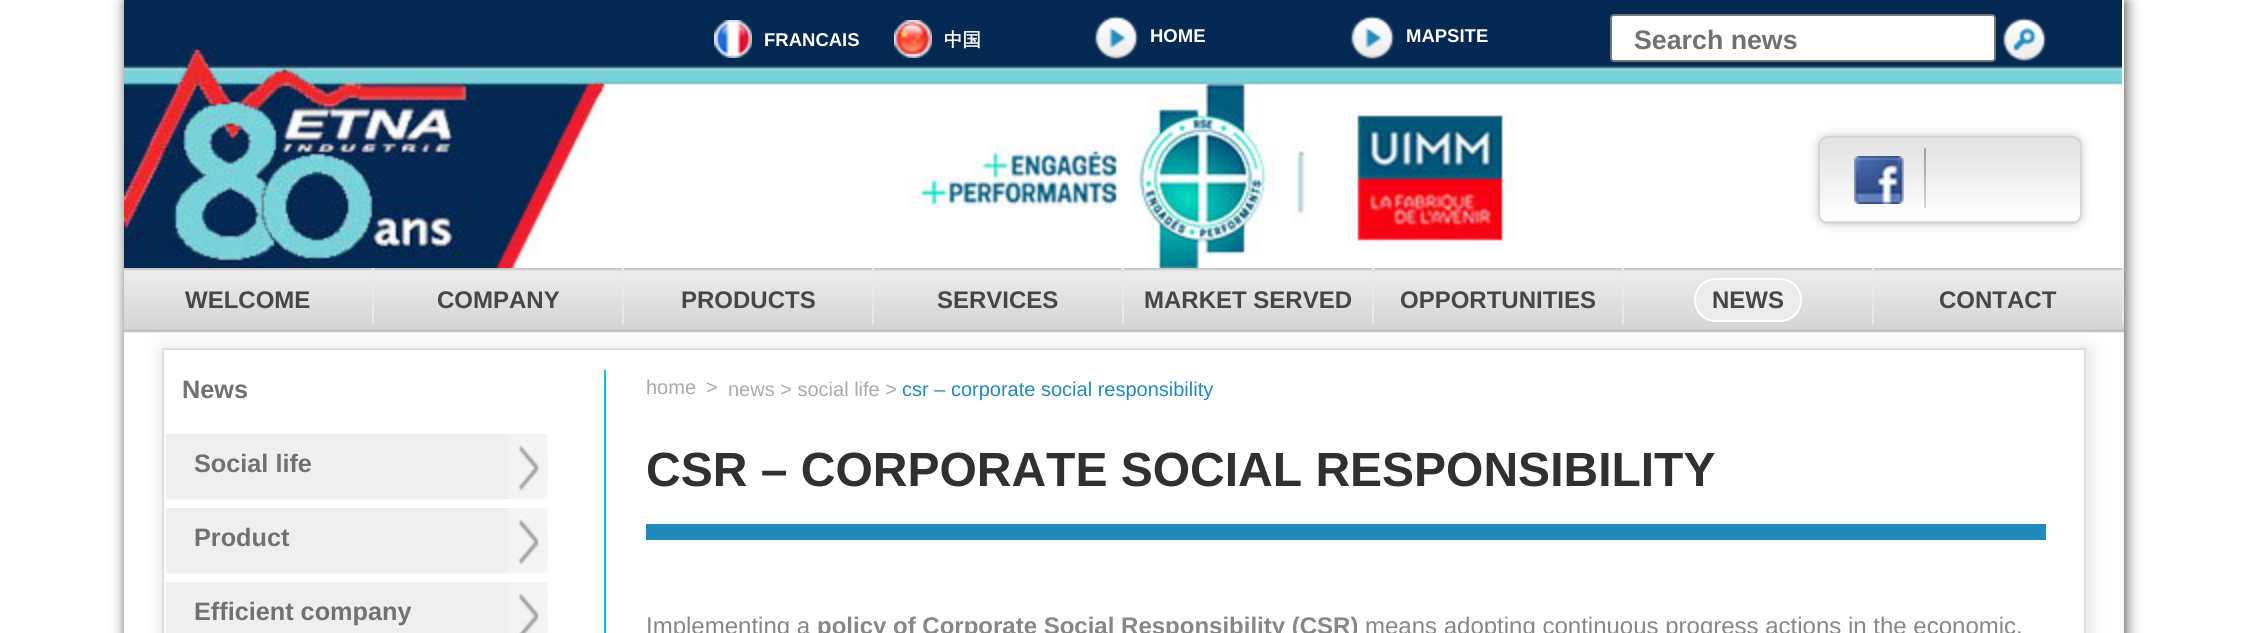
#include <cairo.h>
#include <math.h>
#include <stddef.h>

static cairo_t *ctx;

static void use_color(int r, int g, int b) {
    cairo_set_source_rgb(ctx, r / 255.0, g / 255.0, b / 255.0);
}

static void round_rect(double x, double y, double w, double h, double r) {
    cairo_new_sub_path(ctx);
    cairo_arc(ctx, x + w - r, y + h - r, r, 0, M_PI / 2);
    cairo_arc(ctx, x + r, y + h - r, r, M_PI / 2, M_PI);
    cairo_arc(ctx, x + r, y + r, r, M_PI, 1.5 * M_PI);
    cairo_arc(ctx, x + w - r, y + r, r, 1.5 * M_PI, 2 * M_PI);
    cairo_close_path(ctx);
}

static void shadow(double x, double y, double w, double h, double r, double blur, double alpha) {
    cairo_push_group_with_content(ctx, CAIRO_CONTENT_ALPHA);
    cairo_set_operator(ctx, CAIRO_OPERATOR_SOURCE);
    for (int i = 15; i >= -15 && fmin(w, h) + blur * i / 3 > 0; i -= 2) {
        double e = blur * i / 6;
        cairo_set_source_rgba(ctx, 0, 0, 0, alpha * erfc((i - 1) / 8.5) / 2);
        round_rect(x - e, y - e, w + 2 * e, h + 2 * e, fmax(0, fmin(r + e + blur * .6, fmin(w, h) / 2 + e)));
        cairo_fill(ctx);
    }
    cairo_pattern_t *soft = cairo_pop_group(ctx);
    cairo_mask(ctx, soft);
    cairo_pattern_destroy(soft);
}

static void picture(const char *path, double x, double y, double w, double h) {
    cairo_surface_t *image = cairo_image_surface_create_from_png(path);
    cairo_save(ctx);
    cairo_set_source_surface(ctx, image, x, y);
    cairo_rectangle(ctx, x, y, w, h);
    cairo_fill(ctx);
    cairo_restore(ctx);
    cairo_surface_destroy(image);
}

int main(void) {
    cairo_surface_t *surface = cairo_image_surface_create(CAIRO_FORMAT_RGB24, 2247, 633);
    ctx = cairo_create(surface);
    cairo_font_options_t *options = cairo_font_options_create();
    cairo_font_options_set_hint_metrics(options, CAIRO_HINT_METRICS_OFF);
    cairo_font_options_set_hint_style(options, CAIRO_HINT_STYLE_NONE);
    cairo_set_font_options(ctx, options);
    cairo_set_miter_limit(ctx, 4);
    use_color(255, 255, 255);
    cairo_paint(ctx);
    cairo_save(ctx);
    cairo_set_fill_rule(ctx, CAIRO_FILL_RULE_EVEN_ODD);
    cairo_new_path(ctx);
    cairo_move_to(ctx, 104, 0);
    cairo_line_to(ctx, 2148, 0);
    cairo_line_to(ctx, 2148, 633);
    cairo_line_to(ctx, 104, 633);
    cairo_close_path(ctx);
    cairo_move_to(ctx, 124, 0);
    cairo_line_to(ctx, 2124, 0);
    cairo_line_to(ctx, 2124, 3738);
    cairo_line_to(ctx, 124, 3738);
    cairo_close_path(ctx);
    cairo_clip(ctx);
    use_color(85, 85, 85);
    shadow(126, 2, 2000, 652, 0, 7, 1);
    cairo_restore(ctx);
    picture("img1.png", 124, 0, 1998, 268);
    picture("img2.png", 714, 20, 38, 38);
    cairo_select_font_face(ctx, "Liberation Sans", CAIRO_FONT_SLANT_NORMAL, CAIRO_FONT_WEIGHT_BOLD);
    cairo_set_font_size(ctx, 18.5);
    use_color(255, 255, 255);
    cairo_move_to(ctx, 764, 46);
    cairo_show_text(ctx, "FRANCAIS");
    picture("img3.png", 894, 20, 38, 38);
    cairo_select_font_face(ctx, "WenQuanYi Zen Hei", CAIRO_FONT_SLANT_NORMAL, CAIRO_FONT_WEIGHT_BOLD);
    cairo_move_to(ctx, 944, 46);
    cairo_show_text(ctx, "中国");
    picture("img4.png", 1094, 15, 45, 45);
    cairo_select_font_face(ctx, "Liberation Sans", CAIRO_FONT_SLANT_NORMAL, CAIRO_FONT_WEIGHT_BOLD);
    cairo_move_to(ctx, 1150, 42);
    cairo_show_text(ctx, "HOME");
    picture("img4.png", 1350, 15, 45, 45);
    cairo_move_to(ctx, 1406, 42);
    cairo_show_text(ctx, "MAPSITE");
    round_rect(1611, 15, 384, 46, 3);
    cairo_fill_preserve(ctx);
    use_color(118, 118, 118);
    cairo_stroke(ctx);
    cairo_set_font_size(ctx, 26.75);
    use_color(113, 113, 113);
    cairo_move_to(ctx, 1634, 49);
    cairo_show_text(ctx, "Search news");
    picture("img5.png", 2002, 17, 45, 45);
    use_color(204, 204, 204);
    shadow(1818, 136, 264, 88, 10, 5, 1);
    picture("img6.png", 1818, 138, 264, 83);
    round_rect(1819, 137, 262, 86, 9);
    use_color(213, 213, 213);
    cairo_stroke(ctx);
    picture("img7.png", 1854, 156, 50, 48);
    picture("img8.png", 1924, 148, 2, 60);
    picture("img9.png", 124, 268, 2000, 65);
    cairo_save(ctx);
    cairo_set_fill_rule(ctx, CAIRO_FILL_RULE_EVEN_ODD);
    cairo_new_path(ctx);
    cairo_move_to(ctx, 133, 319);
    cairo_line_to(ctx, 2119, 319);
    cairo_line_to(ctx, 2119, 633);
    cairo_line_to(ctx, 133, 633);
    cairo_close_path(ctx);
    cairo_move_to(ctx, 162, 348);
    cairo_line_to(ctx, 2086, 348);
    cairo_line_to(ctx, 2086, 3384);
    cairo_line_to(ctx, 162, 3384);
    cairo_close_path(ctx);
    cairo_clip(ctx);
    use_color(221, 221, 221);
    shadow(164, 350, 1924, 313, 0, 10, 1);
    cairo_restore(ctx);
    use_color(232, 232, 232);
    cairo_rectangle(ctx, 372, 268, 2, 56);
    cairo_fill(ctx);
    cairo_set_font_size(ctx, 24);
    use_color(71, 71, 71);
    cairo_move_to(ctx, 185, 308);
    cairo_show_text(ctx, "WELCOME");
    use_color(232, 232, 232);
    cairo_rectangle(ctx, 622, 268, 2, 56);
    cairo_fill(ctx);
    use_color(71, 71, 71);
    cairo_move_to(ctx, 437, 308);
    cairo_show_text(ctx, "COMPANY");
    use_color(232, 232, 232);
    cairo_rectangle(ctx, 872, 268, 2, 56);
    cairo_fill(ctx);
    use_color(71, 71, 71);
    cairo_move_to(ctx, 681, 308);
    cairo_show_text(ctx, "PRODUCTS");
    use_color(232, 232, 232);
    cairo_rectangle(ctx, 1122, 268, 2, 56);
    cairo_fill(ctx);
    use_color(71, 71, 71);
    cairo_move_to(ctx, 937, 308);
    cairo_show_text(ctx, "SERVICES");
    use_color(232, 232, 232);
    cairo_rectangle(ctx, 1372, 268, 2, 56);
    cairo_fill(ctx);
    use_color(71, 71, 71);
    cairo_move_to(ctx, 1144, 308);
    cairo_show_text(ctx, "MARKET SERVED");
    use_color(232, 232, 232);
    cairo_rectangle(ctx, 1622, 268, 2, 56);
    cairo_fill(ctx);
    use_color(71, 71, 71);
    cairo_move_to(ctx, 1400, 308);
    cairo_show_text(ctx, "OPPORTUNITIES");
    use_color(232, 232, 232);
    cairo_rectangle(ctx, 1872, 268, 2, 56);
    cairo_fill(ctx);
    use_color(236, 236, 236);
    round_rect(1695, 279, 106, 42, 21);
    cairo_fill_preserve(ctx);
    use_color(255, 255, 255);
    cairo_stroke(ctx);
    use_color(71, 71, 71);
    cairo_move_to(ctx, 1712, 308);
    cairo_show_text(ctx, "NEWS");
    use_color(232, 232, 232);
    cairo_rectangle(ctx, 2122, 268, 2, 56);
    cairo_fill(ctx);
    use_color(71, 71, 71);
    cairo_move_to(ctx, 1939, 308);
    cairo_show_text(ctx, "CONTACT");
    cairo_rectangle(ctx, 163, 349, 1922, 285);
    use_color(221, 221, 221);
    cairo_stroke(ctx);
    cairo_set_font_size(ctx, 25.25);
    use_color(113, 113, 113);
    cairo_move_to(ctx, 182, 398);
    cairo_show_text(ctx, "News");
    picture("img10.png", 165, 434, 383, 66);
    cairo_move_to(ctx, 194, 472);
    cairo_show_text(ctx, "Social life");
    picture("img10.png", 165, 508, 383, 66);
    cairo_move_to(ctx, 194, 546);
    cairo_show_text(ctx, "Product");
    picture("img11.png", 165, 582, 383, 51);
    cairo_move_to(ctx, 194, 620);
    cairo_show_text(ctx, "Efficient company");
    use_color(0, 191, 243);
    cairo_rectangle(ctx, 604, 370, 2, 263);
    cairo_fill(ctx);
    cairo_select_font_face(ctx, "Liberation Sans", CAIRO_FONT_SLANT_NORMAL, CAIRO_FONT_WEIGHT_NORMAL);
    cairo_set_font_size(ctx, 20);
    use_color(170, 170, 170);
    cairo_move_to(ctx, 646, 394);
    cairo_show_text(ctx, "home");
    cairo_move_to(ctx, 706, 394);
    cairo_show_text(ctx, ">");
    cairo_move_to(ctx, 728, 396);
    cairo_show_text(ctx, "news > social life >");
    use_color(33, 137, 189);
    cairo_move_to(ctx, 902, 396);
    cairo_show_text(ctx, "csr – corporate social responsibility");
    cairo_select_font_face(ctx, "Liberation Sans", CAIRO_FONT_SLANT_NORMAL, CAIRO_FONT_WEIGHT_BOLD);
    cairo_set_font_size(ctx, 48);
    use_color(50, 47, 50);
    cairo_move_to(ctx, 646, 486);
    cairo_show_text(ctx, "CSR – CORPORATE SOCIAL RESPONSIBILITY");
    use_color(33, 137, 190);
    cairo_rectangle(ctx, 646, 524, 1400, 16);
    cairo_fill(ctx);
    cairo_select_font_face(ctx, "Liberation Sans", CAIRO_FONT_SLANT_NORMAL, CAIRO_FONT_WEIGHT_NORMAL);
    cairo_set_font_size(ctx, 24);
    use_color(134, 135, 137);
    cairo_move_to(ctx, 646, 634);
    cairo_show_text(ctx, "Implementing a");
    cairo_select_font_face(ctx, "Liberation Sans", CAIRO_FONT_SLANT_NORMAL, CAIRO_FONT_WEIGHT_BOLD);
    cairo_move_to(ctx, 817, 634);
    cairo_show_text(ctx, "policy of Corporate Social Responsibility (CSR)");
    cairo_select_font_face(ctx, "Liberation Sans", CAIRO_FONT_SLANT_NORMAL, CAIRO_FONT_WEIGHT_NORMAL);
    cairo_move_to(ctx, 1365, 634);
    cairo_show_text(ctx, "means adopting continuous progress actions in the economic,");
    cairo_surface_write_to_png(surface, "result.png");
    cairo_font_options_destroy(options);
    cairo_destroy(ctx);
    cairo_surface_destroy(surface);
    return 0;
}
